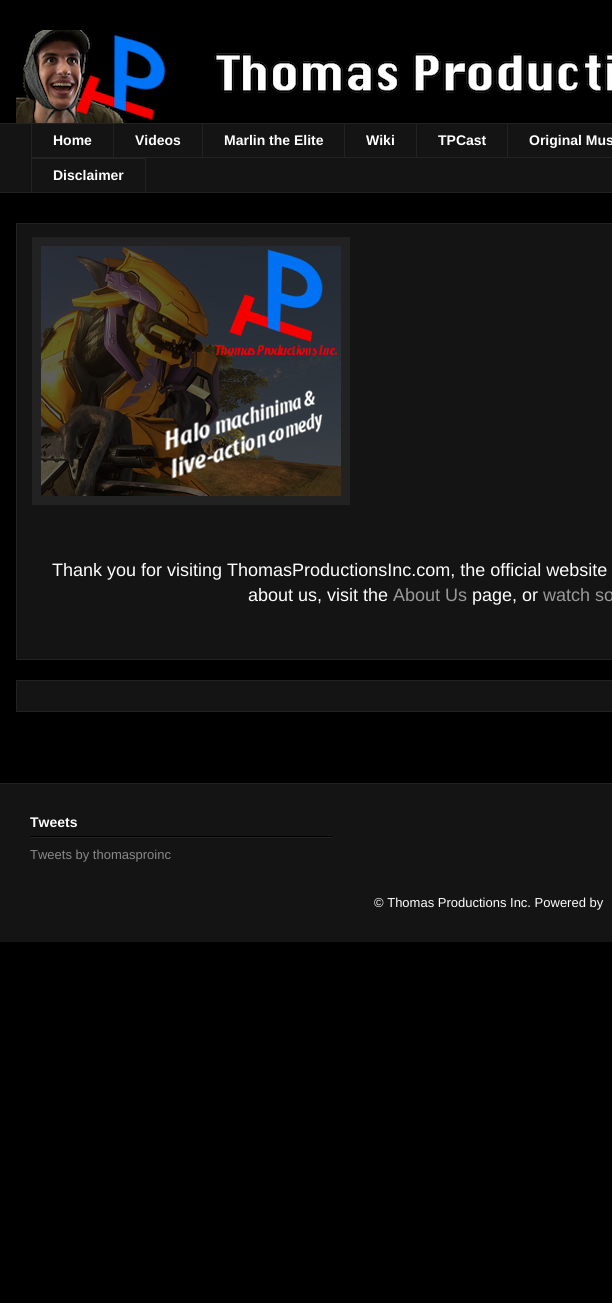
#include <cairo.h>
#include <math.h>
#include <stddef.h>

static cairo_t *ctx;

static void use_color(int r, int g, int b) {
    cairo_set_source_rgb(ctx, r / 255.0, g / 255.0, b / 255.0);
}

static void picture(const char *path, double x, double y, double w, double h) {
    cairo_surface_t *image = cairo_image_surface_create_from_png(path);
    cairo_save(ctx);
    cairo_set_source_surface(ctx, image, x, y);
    cairo_rectangle(ctx, x, y, w, h);
    cairo_fill(ctx);
    cairo_restore(ctx);
    cairo_surface_destroy(image);
}

int main(void) {
    cairo_surface_t *surface = cairo_image_surface_create(CAIRO_FORMAT_RGB24, 612, 1303);
    ctx = cairo_create(surface);
    cairo_font_options_t *options = cairo_font_options_create();
    cairo_font_options_set_hint_metrics(options, CAIRO_HINT_METRICS_OFF);
    cairo_font_options_set_hint_style(options, CAIRO_HINT_STYLE_NONE);
    cairo_set_font_options(ctx, options);
    cairo_set_miter_limit(ctx, 4);
    use_color(0, 0, 0);
    cairo_paint(ctx);
    picture("img1.png", 16, 30, 596, 93);
    use_color(20, 20, 20);
    cairo_rectangle(ctx, 0, 124, 612, 68);
    cairo_fill(ctx);
    use_color(34, 34, 34);
    cairo_rectangle(ctx, 0, 123, 612, 1);
    cairo_fill(ctx);
    cairo_rectangle(ctx, 31, 157, 581, 1);
    cairo_fill(ctx);
    cairo_rectangle(ctx, 31, 123, 1, 35);
    cairo_fill(ctx);
    cairo_select_font_face(ctx, "Liberation Sans", CAIRO_FONT_SLANT_NORMAL, CAIRO_FONT_WEIGHT_BOLD);
    cairo_set_font_size(ctx, 14);
    use_color(255, 255, 255);
    cairo_move_to(ctx, 53, 145);
    cairo_show_text(ctx, "Home");
    use_color(34, 34, 34);
    cairo_rectangle(ctx, 113, 123, 1, 35);
    cairo_fill(ctx);
    use_color(255, 255, 255);
    cairo_move_to(ctx, 135, 145);
    cairo_show_text(ctx, "Videos");
    use_color(34, 34, 34);
    cairo_rectangle(ctx, 202, 123, 1, 35);
    cairo_fill(ctx);
    use_color(255, 255, 255);
    cairo_move_to(ctx, 224, 145);
    cairo_show_text(ctx, "Marlin the Elite");
    use_color(34, 34, 34);
    cairo_rectangle(ctx, 344, 123, 1, 35);
    cairo_fill(ctx);
    use_color(255, 255, 255);
    cairo_move_to(ctx, 366, 145);
    cairo_show_text(ctx, "Wiki");
    use_color(34, 34, 34);
    cairo_rectangle(ctx, 416, 123, 1, 35);
    cairo_fill(ctx);
    use_color(255, 255, 255);
    cairo_move_to(ctx, 438, 145);
    cairo_show_text(ctx, "TPCast");
    use_color(34, 34, 34);
    cairo_rectangle(ctx, 507, 123, 1, 35);
    cairo_fill(ctx);
    use_color(255, 255, 255);
    cairo_move_to(ctx, 529, 145);
    cairo_show_text(ctx, "Original Mus");
    cairo_rectangle(ctx, 31.5, 158.5, 114, 34);
    use_color(34, 34, 34);
    cairo_set_line_width(ctx, 1);
    cairo_stroke(ctx);
    use_color(255, 255, 255);
    cairo_move_to(ctx, 53, 180);
    cairo_show_text(ctx, "Disclaimer");
    use_color(34, 34, 34);
    cairo_rectangle(ctx, 0, 192, 612, 1);
    cairo_fill(ctx);
    use_color(20, 20, 20);
    cairo_rectangle(ctx, 16.5, 223.5, 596, 436);
    cairo_fill_preserve(ctx);
    use_color(34, 34, 34);
    cairo_stroke(ctx);
    cairo_rectangle(ctx, 32, 237, 318, 268);
    cairo_fill(ctx);
    picture("img2.png", 41, 246, 300, 250);
    cairo_select_font_face(ctx, "Liberation Sans", CAIRO_FONT_SLANT_NORMAL, CAIRO_FONT_WEIGHT_NORMAL);
    cairo_set_font_size(ctx, 18);
    use_color(255, 255, 255);
    cairo_move_to(ctx, 52, 576);
    cairo_show_text(ctx, "Thank you for visiting ThomasProductionsInc.com, the official website");
    cairo_move_to(ctx, 248, 601);
    cairo_show_text(ctx, "about us, visit the");
    use_color(153, 153, 153);
    cairo_move_to(ctx, 393, 601);
    cairo_show_text(ctx, "About Us");
    use_color(255, 255, 255);
    cairo_move_to(ctx, 472, 601);
    cairo_show_text(ctx, "page, or");
    use_color(153, 153, 153);
    cairo_move_to(ctx, 543, 601);
    cairo_show_text(ctx, "watch so");
    use_color(20, 20, 20);
    cairo_rectangle(ctx, 16.5, 680.5, 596, 31);
    cairo_fill_preserve(ctx);
    use_color(34, 34, 34);
    cairo_stroke(ctx);
    use_color(20, 20, 20);
    cairo_rectangle(ctx, 0, 784, 612, 158);
    cairo_fill(ctx);
    use_color(34, 34, 34);
    cairo_rectangle(ctx, 0, 783, 612, 1);
    cairo_fill(ctx);
    use_color(0, 0, 0);
    cairo_rectangle(ctx, 30, 836, 303, 1);
    cairo_fill(ctx);
    cairo_select_font_face(ctx, "Liberation Sans", CAIRO_FONT_SLANT_NORMAL, CAIRO_FONT_WEIGHT_BOLD);
    cairo_set_font_size(ctx, 14);
    use_color(255, 255, 255);
    cairo_move_to(ctx, 30, 827);
    cairo_show_text(ctx, "Tweets");
    use_color(34, 34, 34);
    cairo_rectangle(ctx, 30, 837, 303, 1);
    cairo_fill(ctx);
    cairo_select_font_face(ctx, "Liberation Sans", CAIRO_FONT_SLANT_NORMAL, CAIRO_FONT_WEIGHT_NORMAL);
    cairo_set_font_size(ctx, 13);
    use_color(136, 136, 136);
    cairo_move_to(ctx, 30, 859);
    cairo_show_text(ctx, "Tweets by thomasproinc");
    use_color(255, 255, 255);
    cairo_move_to(ctx, 374, 907);
    cairo_show_text(ctx, "© Thomas Productions Inc. Powered by");
    cairo_surface_write_to_png(surface, "result.png");
    cairo_font_options_destroy(options);
    cairo_destroy(ctx);
    cairo_surface_destroy(surface);
    return 0;
}
